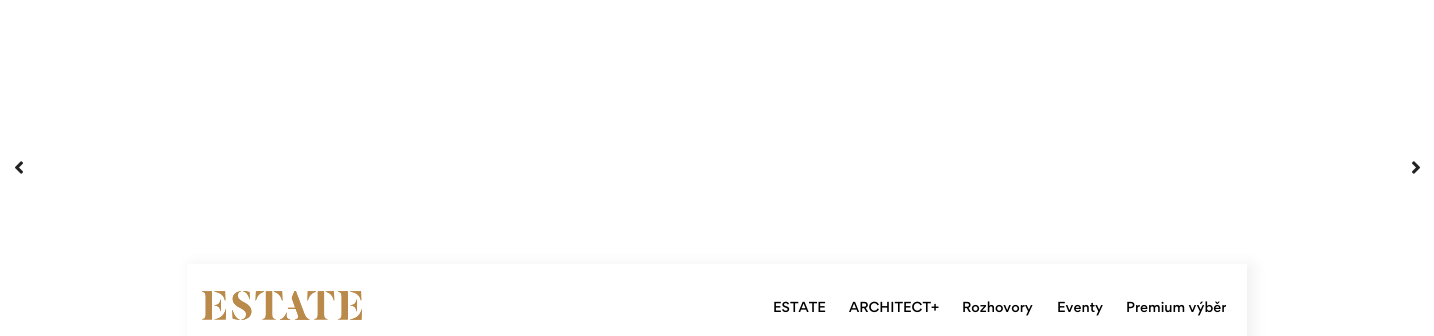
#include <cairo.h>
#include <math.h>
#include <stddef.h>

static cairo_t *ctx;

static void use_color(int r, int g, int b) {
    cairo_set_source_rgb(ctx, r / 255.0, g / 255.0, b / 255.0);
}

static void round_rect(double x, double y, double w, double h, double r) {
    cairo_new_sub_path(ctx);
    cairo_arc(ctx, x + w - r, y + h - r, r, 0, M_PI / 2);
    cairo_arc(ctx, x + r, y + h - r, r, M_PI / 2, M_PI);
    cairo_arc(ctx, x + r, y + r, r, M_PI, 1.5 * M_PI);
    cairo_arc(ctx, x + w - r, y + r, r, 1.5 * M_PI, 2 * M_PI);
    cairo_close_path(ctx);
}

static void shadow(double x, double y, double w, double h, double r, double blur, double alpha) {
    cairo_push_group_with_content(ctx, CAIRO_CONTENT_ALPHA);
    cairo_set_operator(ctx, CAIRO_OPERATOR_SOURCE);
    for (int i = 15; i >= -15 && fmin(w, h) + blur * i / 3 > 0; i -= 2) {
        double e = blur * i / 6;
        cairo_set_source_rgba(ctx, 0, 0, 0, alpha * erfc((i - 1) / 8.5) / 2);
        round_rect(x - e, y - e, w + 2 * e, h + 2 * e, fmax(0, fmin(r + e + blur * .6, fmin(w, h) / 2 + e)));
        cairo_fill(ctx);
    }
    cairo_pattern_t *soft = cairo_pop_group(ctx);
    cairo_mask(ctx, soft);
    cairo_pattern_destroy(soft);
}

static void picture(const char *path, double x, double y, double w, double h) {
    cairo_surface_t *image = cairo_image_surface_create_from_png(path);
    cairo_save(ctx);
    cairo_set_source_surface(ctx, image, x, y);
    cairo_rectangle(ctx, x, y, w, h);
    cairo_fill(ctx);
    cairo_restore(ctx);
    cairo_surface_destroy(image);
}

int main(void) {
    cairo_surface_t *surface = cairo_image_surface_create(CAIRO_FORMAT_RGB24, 1434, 336);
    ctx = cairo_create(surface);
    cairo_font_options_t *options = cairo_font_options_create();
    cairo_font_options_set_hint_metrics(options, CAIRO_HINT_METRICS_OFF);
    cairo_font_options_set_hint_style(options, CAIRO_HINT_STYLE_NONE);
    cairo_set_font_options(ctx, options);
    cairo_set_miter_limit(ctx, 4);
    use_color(255, 255, 255);
    cairo_paint(ctx);
    picture("img1.png", 15, 161, 8, 13);
    picture("img2.png", 1412, 161, 8, 13);
    cairo_save(ctx);
    cairo_set_fill_rule(ctx, CAIRO_FILL_RULE_EVEN_ODD);
    cairo_new_path(ctx);
    cairo_move_to(ctx, 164, 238);
    cairo_line_to(ctx, 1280, 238);
    cairo_line_to(ctx, 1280, 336);
    cairo_line_to(ctx, 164, 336);
    cairo_close_path(ctx);
    cairo_move_to(ctx, 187, 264);
    cairo_line_to(ctx, 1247, 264);
    cairo_line_to(ctx, 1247, 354);
    cairo_line_to(ctx, 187, 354);
    cairo_close_path(ctx);
    cairo_clip(ctx);
    use_color(1, 6, 13);
    shadow(192, 266, 1060, 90, 0, 9, 0.07);
    cairo_restore(ctx);
    picture("img3.png", 202, 291, 160, 29);
    cairo_select_font_face(ctx, "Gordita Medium", CAIRO_FONT_SLANT_NORMAL, CAIRO_FONT_WEIGHT_NORMAL);
    cairo_set_font_size(ctx, 13);
    use_color(0, 0, 0);
    cairo_move_to(ctx, 773, 312);
    cairo_show_text(ctx, "ESTATE");
    cairo_move_to(ctx, 849, 312);
    cairo_show_text(ctx, "ARCHITECT+");
    cairo_move_to(ctx, 962, 312);
    cairo_show_text(ctx, "Rozhovory");
    cairo_move_to(ctx, 1057, 312);
    cairo_show_text(ctx, "Eventy");
    cairo_move_to(ctx, 1126, 312);
    cairo_show_text(ctx, "Premium výběr");
    cairo_surface_write_to_png(surface, "result.png");
    cairo_font_options_destroy(options);
    cairo_destroy(ctx);
    cairo_surface_destroy(surface);
    return 0;
}
